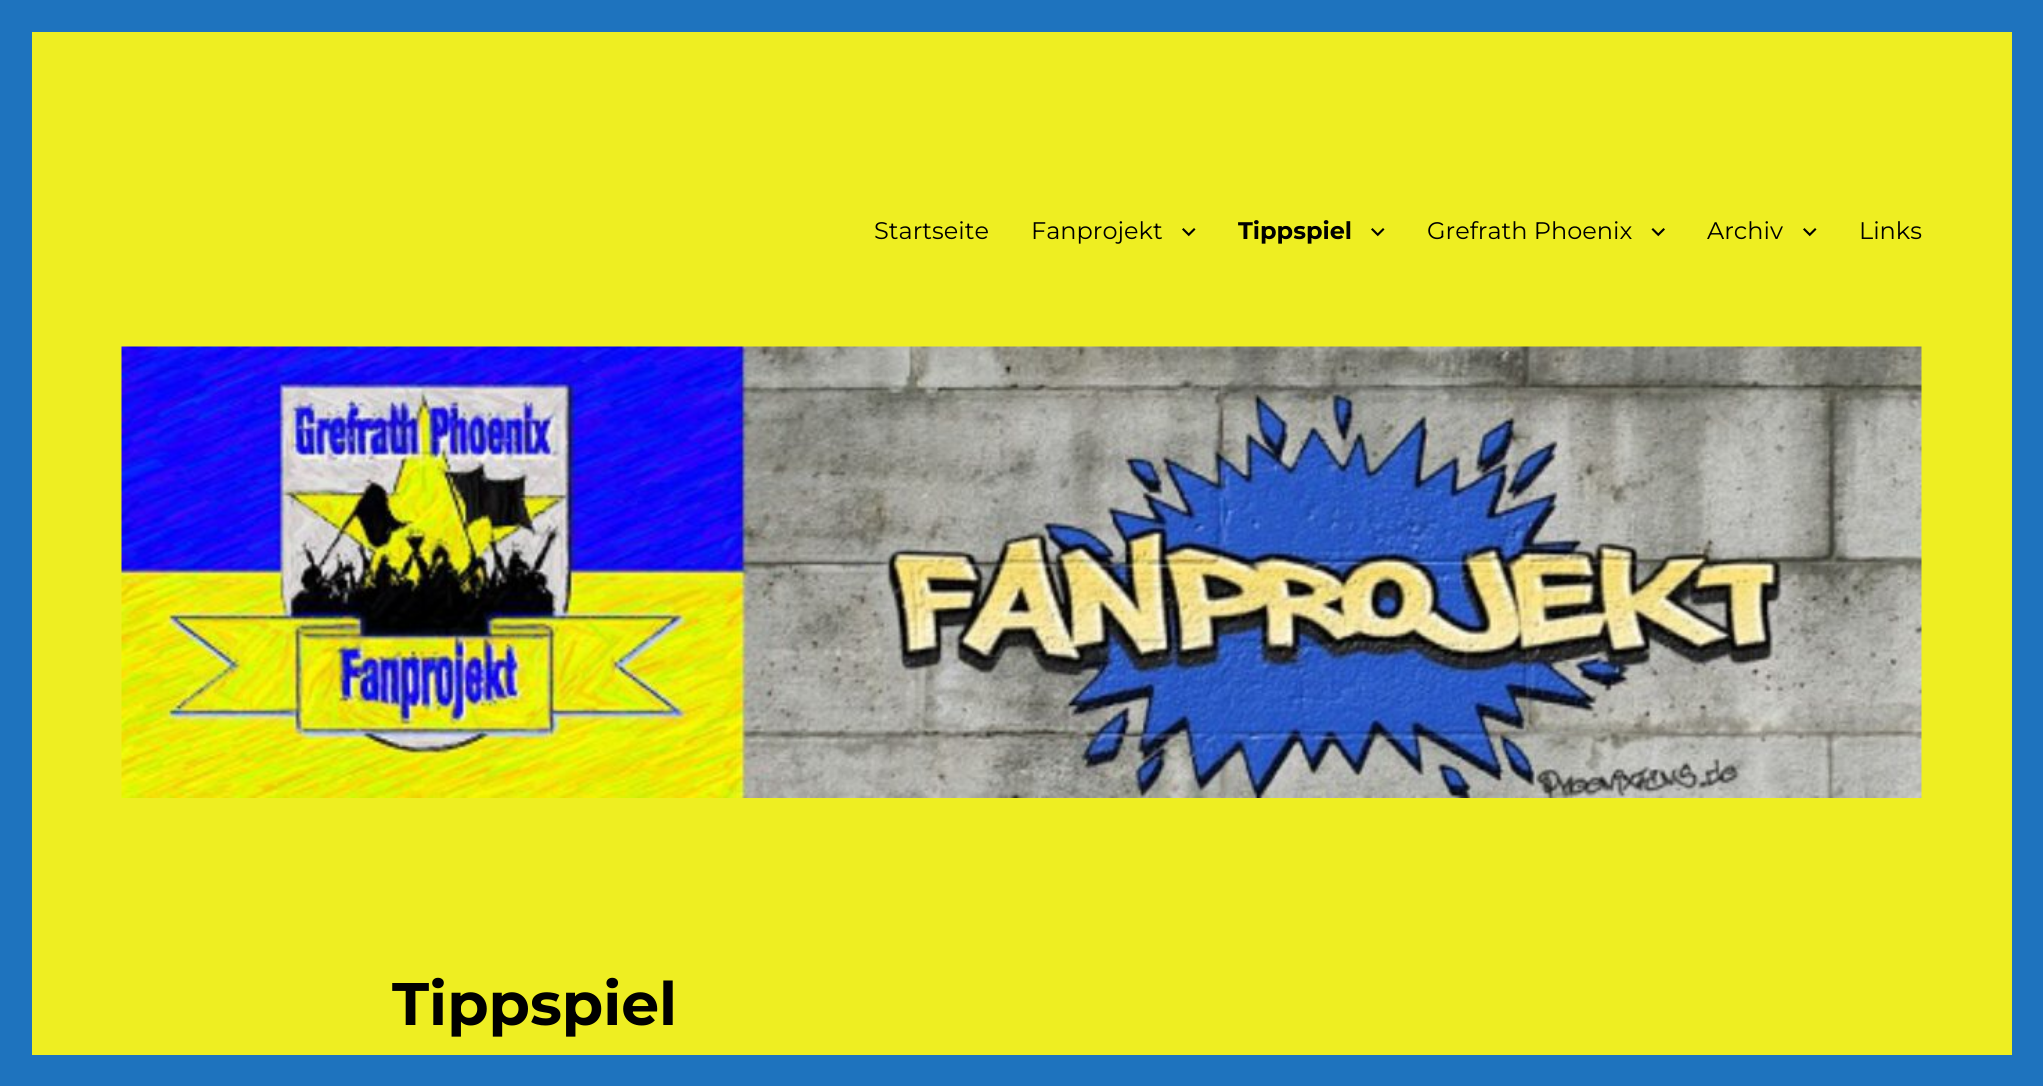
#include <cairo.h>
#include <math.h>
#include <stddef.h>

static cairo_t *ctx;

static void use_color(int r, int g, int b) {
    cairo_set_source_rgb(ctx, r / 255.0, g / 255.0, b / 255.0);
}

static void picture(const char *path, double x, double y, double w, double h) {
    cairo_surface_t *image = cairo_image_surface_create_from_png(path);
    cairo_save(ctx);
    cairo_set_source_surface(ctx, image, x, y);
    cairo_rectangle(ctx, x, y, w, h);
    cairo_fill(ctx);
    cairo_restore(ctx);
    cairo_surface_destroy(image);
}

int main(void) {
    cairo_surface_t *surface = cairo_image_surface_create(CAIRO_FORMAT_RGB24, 2043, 1086);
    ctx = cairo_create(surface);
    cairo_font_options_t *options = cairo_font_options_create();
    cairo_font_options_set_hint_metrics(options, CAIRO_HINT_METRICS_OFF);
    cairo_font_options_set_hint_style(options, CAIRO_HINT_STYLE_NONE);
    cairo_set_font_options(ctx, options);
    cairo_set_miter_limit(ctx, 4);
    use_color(30, 115, 190);
    cairo_paint(ctx);
    use_color(238, 238, 34);
    cairo_rectangle(ctx, 32, 32, 1980, 1023);
    cairo_fill(ctx);
    cairo_select_font_face(ctx, "Montserrat Thin", CAIRO_FONT_SLANT_NORMAL, CAIRO_FONT_WEIGHT_NORMAL);
    cairo_set_font_size(ctx, 24);
    use_color(0, 0, 0);
    cairo_move_to(ctx, 874, 239);
    cairo_show_text(ctx, "Startseite");
    cairo_move_to(ctx, 1031, 239);
    cairo_show_text(ctx, "Fanprojekt");
    picture("img1.png", 1182, 228, 14, 9);
    cairo_select_font_face(ctx, "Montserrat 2 Thin", CAIRO_FONT_SLANT_NORMAL, CAIRO_FONT_WEIGHT_NORMAL);
    cairo_move_to(ctx, 1238, 239);
    cairo_show_text(ctx, "Tippspiel");
    picture("img1.png", 1371, 228, 14, 9);
    cairo_select_font_face(ctx, "Montserrat Thin", CAIRO_FONT_SLANT_NORMAL, CAIRO_FONT_WEIGHT_NORMAL);
    cairo_move_to(ctx, 1427, 239);
    cairo_show_text(ctx, "Grefrath Phoenix");
    picture("img2.png", 1651, 228, 14, 9);
    cairo_move_to(ctx, 1707, 239);
    cairo_show_text(ctx, "Archiv");
    picture("img1.png", 1803, 228, 14, 9);
    cairo_move_to(ctx, 1859, 239);
    cairo_show_text(ctx, "Links");
    picture("img3.png", 121, 346, 1801, 452);
    cairo_select_font_face(ctx, "Montserrat 2 Thin", CAIRO_FONT_SLANT_NORMAL, CAIRO_FONT_WEIGHT_NORMAL);
    cairo_set_font_size(ctx, 60);
    cairo_move_to(ctx, 392, 1025);
    cairo_show_text(ctx, "Tippspiel");
    cairo_surface_write_to_png(surface, "result.png");
    cairo_font_options_destroy(options);
    cairo_destroy(ctx);
    cairo_surface_destroy(surface);
    return 0;
}
